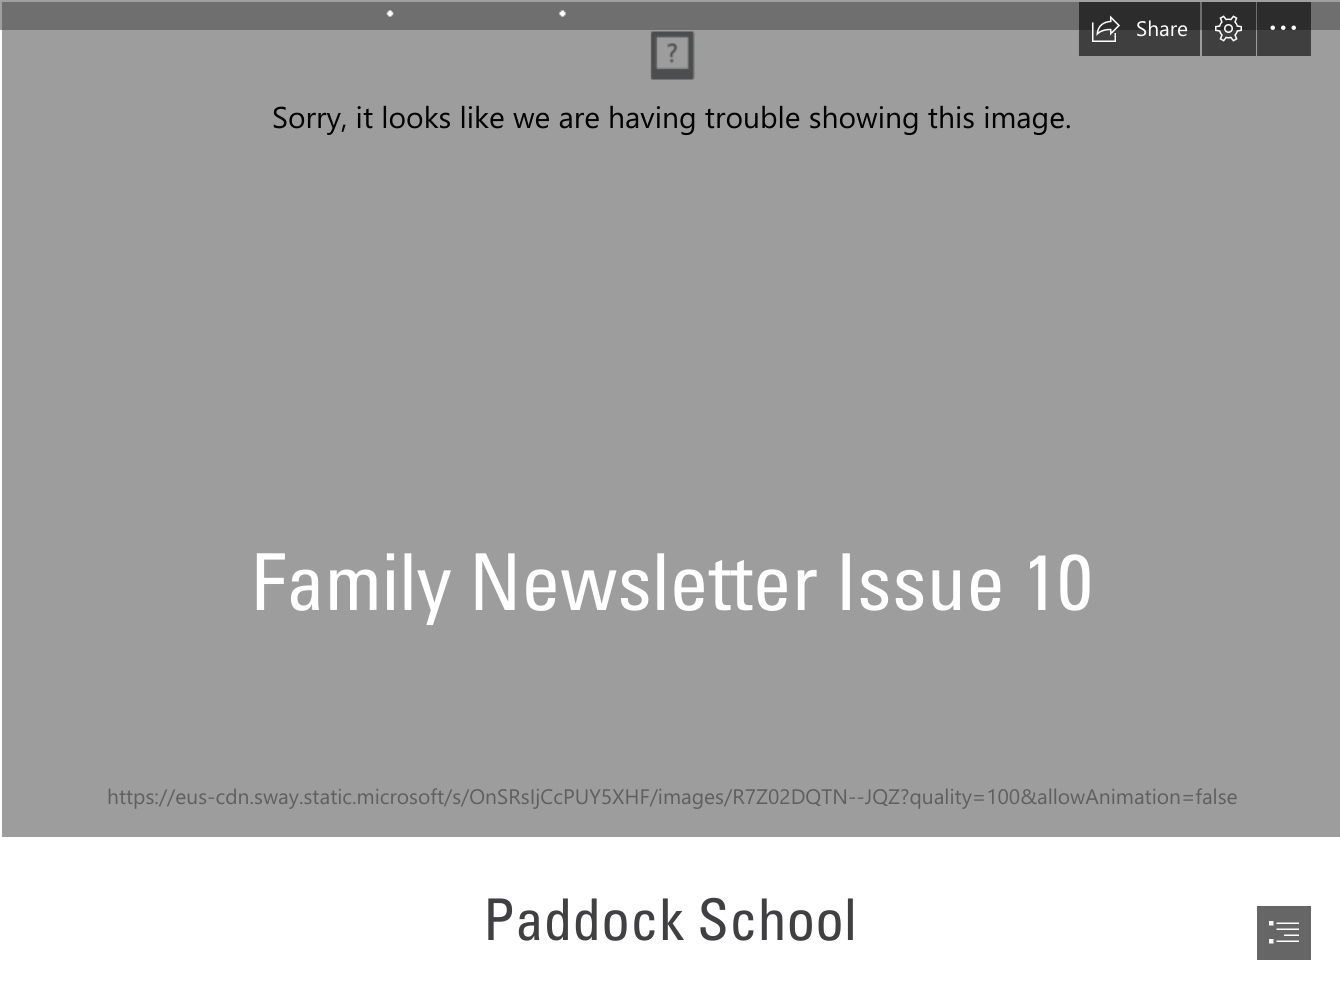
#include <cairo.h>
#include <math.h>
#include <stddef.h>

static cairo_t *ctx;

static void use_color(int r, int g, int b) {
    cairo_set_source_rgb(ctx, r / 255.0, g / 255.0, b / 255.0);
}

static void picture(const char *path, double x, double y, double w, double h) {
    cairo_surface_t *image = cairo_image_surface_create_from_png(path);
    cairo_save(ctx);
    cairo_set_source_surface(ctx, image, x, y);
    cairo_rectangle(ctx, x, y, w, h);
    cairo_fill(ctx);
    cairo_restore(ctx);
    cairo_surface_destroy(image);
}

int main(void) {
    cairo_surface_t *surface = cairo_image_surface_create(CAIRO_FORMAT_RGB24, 1340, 991);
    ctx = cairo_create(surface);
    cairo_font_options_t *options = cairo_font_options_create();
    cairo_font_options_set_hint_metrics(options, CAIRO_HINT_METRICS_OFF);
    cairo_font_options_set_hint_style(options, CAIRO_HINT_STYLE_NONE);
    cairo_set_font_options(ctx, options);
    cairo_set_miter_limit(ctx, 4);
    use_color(255, 255, 255);
    cairo_paint(ctx);
    use_color(160, 160, 160);
    cairo_rectangle(ctx, 0, 0, 1340, 30);
    cairo_fill(ctx);
    use_color(157, 157, 157);
    cairo_rectangle(ctx, 2, 30, 1338, 807);
    cairo_fill(ctx);
    use_color(63, 63, 63);
    cairo_rectangle(ctx, 1079, 30, 121, 26);
    cairo_fill(ctx);
    use_color(111, 111, 111);
    cairo_rectangle(ctx, 2, 2, 1338, 28);
    cairo_fill(ctx);
    use_color(44, 44, 44);
    cairo_rectangle(ctx, 1079, 2, 121, 28);
    cairo_fill(ctx);
    picture("img1.png", 1092, 15, 28, 27);
    cairo_select_font_face(ctx, "Segoe UI", CAIRO_FONT_SLANT_NORMAL, CAIRO_FONT_WEIGHT_NORMAL);
    cairo_set_font_size(ctx, 21);
    use_color(255, 255, 255);
    cairo_move_to(ctx, 1136, 36);
    cairo_show_text(ctx, "Share");
    use_color(63, 63, 63);
    cairo_rectangle(ctx, 1202, 30, 54, 26);
    cairo_fill(ctx);
    use_color(44, 44, 44);
    cairo_rectangle(ctx, 1202, 2, 54, 28);
    cairo_fill(ctx);
    picture("img2.png", 1215, 15, 27, 27);
    cairo_rectangle(ctx, 1257, 2, 54, 28);
    cairo_fill(ctx);
    picture("img3.png", 1270, 25, 26, 5);
    picture("img4.png", 386, 10, 180, 7);
    use_color(63, 63, 63);
    cairo_rectangle(ctx, 1257, 30, 54, 26);
    cairo_fill(ctx);
    picture("img5.png", 650, 31, 45, 49);
    cairo_set_font_size(ctx, 30);
    use_color(0, 0, 0);
    cairo_move_to(ctx, 272, 128);
    cairo_show_text(ctx, "Sorry, it looks like we are having trouble showing this image.");
    cairo_set_font_size(ctx, 21);
    use_color(95, 95, 95);
    cairo_move_to(ctx, 107, 804);
    cairo_show_text(ctx, "https://eus-cdn.sway.static.microsoft/s/OnSRsIjCcPUY5XHF/images/R7Z02DQTN--JQZ?quality=100&allowAnimation=false");
    cairo_select_font_face(ctx, "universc", CAIRO_FONT_SLANT_NORMAL, CAIRO_FONT_WEIGHT_NORMAL);
    cairo_set_font_size(ctx, 78.5);
    use_color(255, 255, 255);
    cairo_move_to(ctx, 251, 610);
    cairo_show_text(ctx, "Family Newsletter Issue 10");
    cairo_set_font_size(ctx, 57.5);
    use_color(64, 63, 65);
    cairo_move_to(ctx, 483, 940);
    cairo_show_text(ctx, "Paddock School");
    use_color(102, 102, 102);
    cairo_rectangle(ctx, 1257, 906, 54, 54);
    cairo_fill(ctx);
    picture("img6.png", 1269, 921, 30, 23);
    cairo_surface_write_to_png(surface, "result.png");
    cairo_font_options_destroy(options);
    cairo_destroy(ctx);
    cairo_surface_destroy(surface);
    return 0;
}
